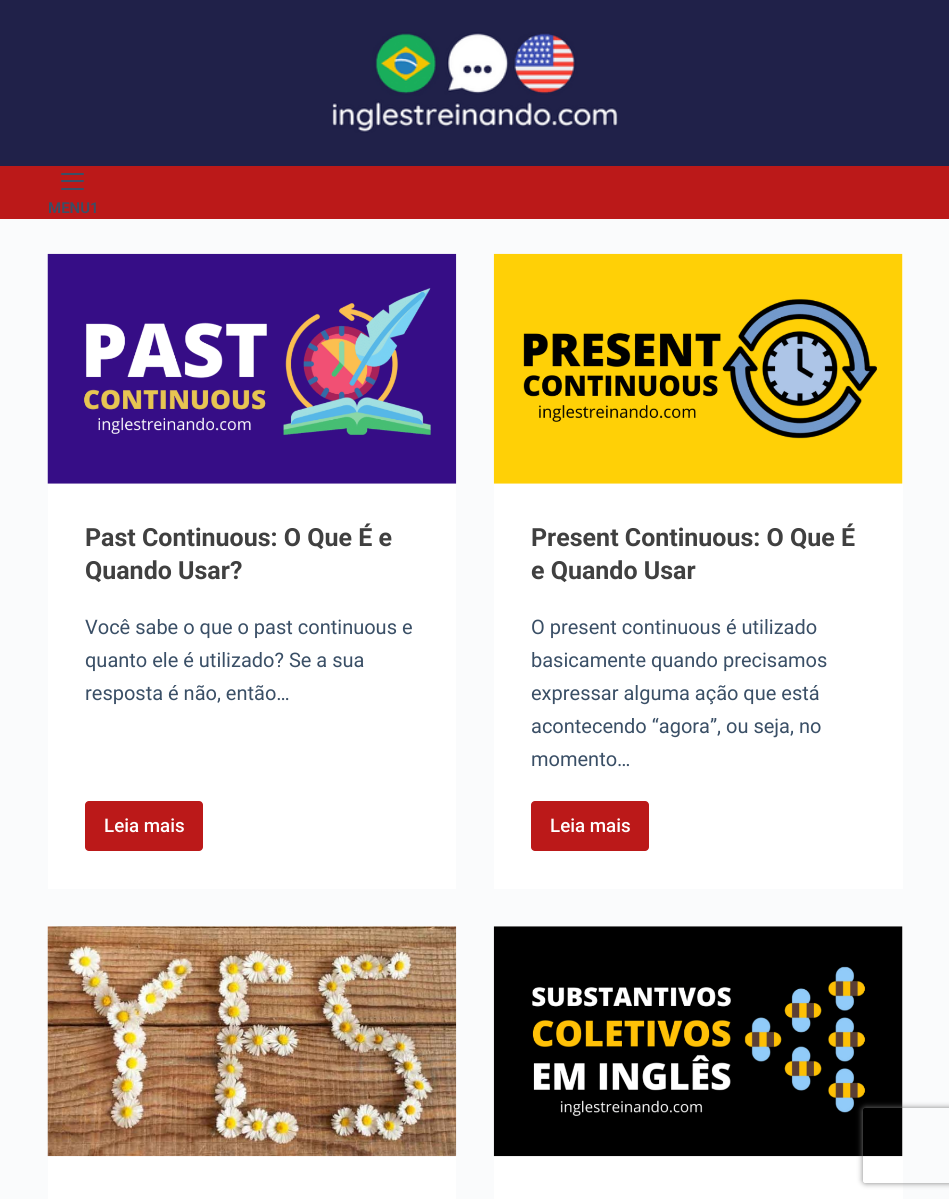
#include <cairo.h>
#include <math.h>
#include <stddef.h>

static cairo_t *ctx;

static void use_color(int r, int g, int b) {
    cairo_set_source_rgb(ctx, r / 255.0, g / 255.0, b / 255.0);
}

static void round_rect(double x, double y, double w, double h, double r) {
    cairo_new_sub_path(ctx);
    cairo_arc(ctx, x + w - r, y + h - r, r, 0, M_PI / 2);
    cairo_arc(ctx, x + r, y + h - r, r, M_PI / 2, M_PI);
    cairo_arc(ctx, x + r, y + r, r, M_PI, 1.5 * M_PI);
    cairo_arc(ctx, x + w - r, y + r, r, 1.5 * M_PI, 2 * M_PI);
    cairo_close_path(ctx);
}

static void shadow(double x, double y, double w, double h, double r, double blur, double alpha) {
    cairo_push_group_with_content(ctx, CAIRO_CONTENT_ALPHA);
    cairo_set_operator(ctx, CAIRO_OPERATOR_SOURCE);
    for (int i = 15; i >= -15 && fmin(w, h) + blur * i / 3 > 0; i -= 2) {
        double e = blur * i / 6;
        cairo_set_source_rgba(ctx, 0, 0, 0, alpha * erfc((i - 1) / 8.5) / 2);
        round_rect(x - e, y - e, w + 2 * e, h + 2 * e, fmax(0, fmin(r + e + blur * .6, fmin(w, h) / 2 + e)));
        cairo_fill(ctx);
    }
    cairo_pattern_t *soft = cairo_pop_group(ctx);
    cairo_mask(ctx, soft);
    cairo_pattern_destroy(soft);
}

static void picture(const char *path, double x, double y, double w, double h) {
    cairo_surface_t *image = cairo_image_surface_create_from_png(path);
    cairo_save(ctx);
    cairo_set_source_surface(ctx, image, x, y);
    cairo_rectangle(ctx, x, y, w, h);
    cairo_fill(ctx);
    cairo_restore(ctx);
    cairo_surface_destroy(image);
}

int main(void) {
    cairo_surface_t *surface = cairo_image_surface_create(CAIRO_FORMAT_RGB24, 949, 1199);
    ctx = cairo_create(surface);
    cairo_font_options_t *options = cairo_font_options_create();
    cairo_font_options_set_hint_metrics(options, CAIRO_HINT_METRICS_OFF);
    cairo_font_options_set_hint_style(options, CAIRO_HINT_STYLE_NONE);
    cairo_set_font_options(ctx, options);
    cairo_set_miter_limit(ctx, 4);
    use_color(250, 251, 252);
    cairo_paint(ctx);
    use_color(32, 33, 73);
    cairo_rectangle(ctx, 0, 0, 949, 166);
    cairo_fill(ctx);
    picture("img1.png", 332, 32, 286, 101);
    use_color(187, 25, 25);
    cairo_rectangle(ctx, 0, 166, 949, 53);
    cairo_fill(ctx);
    use_color(58, 79, 102);
    round_rect(61, 173, 23, 2, 1);
    cairo_fill(ctx);
    round_rect(61, 180, 23, 2, 1);
    cairo_fill(ctx);
    round_rect(61, 188, 23, 2, 1);
    cairo_fill(ctx);
    cairo_select_font_face(ctx, "Roboto SemiBold", CAIRO_FONT_SLANT_NORMAL, CAIRO_FONT_WEIGHT_NORMAL);
    cairo_set_font_size(ctx, 15);
    cairo_move_to(ctx, 48, 213);
    cairo_show_text(ctx, "MENU1");
    use_color(255, 255, 255);
    cairo_rectangle(ctx, 48, 483, 408, 406);
    cairo_fill(ctx);
    picture("img2.png", 47, 253, 410, 231);
    cairo_select_font_face(ctx, "Roboto", CAIRO_FONT_SLANT_NORMAL, CAIRO_FONT_WEIGHT_BOLD);
    cairo_set_font_size(ctx, 25);
    use_color(64, 64, 64);
    cairo_move_to(ctx, 85, 546);
    cairo_show_text(ctx, "Past Continuous: O Que É e");
    cairo_move_to(ctx, 85, 579);
    cairo_show_text(ctx, "Quando Usar?");
    cairo_select_font_face(ctx, "Roboto", CAIRO_FONT_SLANT_NORMAL, CAIRO_FONT_WEIGHT_NORMAL);
    cairo_set_font_size(ctx, 20);
    use_color(58, 79, 102);
    cairo_move_to(ctx, 85, 634);
    cairo_show_text(ctx, "Você sabe o que o past continuous e");
    cairo_move_to(ctx, 85, 667);
    cairo_show_text(ctx, "quanto ele é utilizado? Se a sua");
    cairo_move_to(ctx, 85, 700);
    cairo_show_text(ctx, "resposta é não, então…");
    use_color(187, 25, 25);
    round_rect(85, 801, 118, 50, 4);
    cairo_fill(ctx);
    cairo_select_font_face(ctx, "Roboto Medium", CAIRO_FONT_SLANT_NORMAL, CAIRO_FONT_WEIGHT_NORMAL);
    cairo_set_font_size(ctx, 18.75);
    use_color(255, 255, 255);
    cairo_move_to(ctx, 104, 832);
    cairo_show_text(ctx, "Leia mais");
    cairo_rectangle(ctx, 494, 254, 409, 635);
    cairo_fill(ctx);
    picture("img3.png", 493, 253, 410, 231);
    cairo_select_font_face(ctx, "Roboto", CAIRO_FONT_SLANT_NORMAL, CAIRO_FONT_WEIGHT_BOLD);
    cairo_set_font_size(ctx, 25);
    use_color(64, 64, 64);
    cairo_move_to(ctx, 531, 546);
    cairo_show_text(ctx, "Present Continuous: O Que É");
    cairo_move_to(ctx, 531, 579);
    cairo_show_text(ctx, "e Quando Usar");
    cairo_select_font_face(ctx, "Roboto", CAIRO_FONT_SLANT_NORMAL, CAIRO_FONT_WEIGHT_NORMAL);
    cairo_set_font_size(ctx, 20);
    use_color(58, 79, 102);
    cairo_move_to(ctx, 531, 634);
    cairo_show_text(ctx, "O present continuous é utilizado");
    cairo_move_to(ctx, 531, 667);
    cairo_show_text(ctx, "basicamente quando precisamos");
    cairo_move_to(ctx, 531, 700);
    cairo_show_text(ctx, "expressar alguma ação que está");
    cairo_move_to(ctx, 531, 733);
    cairo_show_text(ctx, "acontecendo “agora”, ou seja, no");
    cairo_move_to(ctx, 531, 766);
    cairo_show_text(ctx, "momento…");
    use_color(187, 25, 25);
    round_rect(531, 801, 118, 50, 4);
    cairo_fill(ctx);
    cairo_select_font_face(ctx, "Roboto Medium", CAIRO_FONT_SLANT_NORMAL, CAIRO_FONT_WEIGHT_NORMAL);
    cairo_set_font_size(ctx, 18.75);
    use_color(255, 255, 255);
    cairo_move_to(ctx, 550, 832);
    cairo_show_text(ctx, "Leia mais");
    cairo_rectangle(ctx, 48, 926, 408, 273);
    cairo_fill(ctx);
    picture("img4.png", 47, 926, 410, 231);
    cairo_rectangle(ctx, 494, 926, 409, 273);
    cairo_fill(ctx);
    picture("img5.png", 493, 926, 410, 231);
    cairo_save(ctx);
    cairo_set_fill_rule(ctx, CAIRO_FILL_RULE_EVEN_ODD);
    cairo_new_path(ctx);
    cairo_move_to(ctx, 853, 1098);
    cairo_line_to(ctx, 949, 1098);
    cairo_line_to(ctx, 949, 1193);
    cairo_line_to(ctx, 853, 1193);
    cairo_close_path(ctx);
    cairo_move_to(ctx, 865.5, 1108);
    cairo_line_to(ctx, 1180.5, 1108);
    cairo_curve_to(ctx, 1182, 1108, 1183, 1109, 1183, 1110.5);
    cairo_line_to(ctx, 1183, 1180.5);
    cairo_curve_to(ctx, 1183, 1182, 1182, 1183, 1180.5, 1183);
    cairo_line_to(ctx, 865.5, 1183);
    cairo_curve_to(ctx, 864, 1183, 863, 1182, 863, 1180.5);
    cairo_line_to(ctx, 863, 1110.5);
    cairo_curve_to(ctx, 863, 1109, 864, 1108, 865.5, 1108);
    cairo_close_path(ctx);
    cairo_clip(ctx);
    use_color(128, 128, 128);
    shadow(863, 1108, 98, 75, 2.5, 3, 1);
    cairo_restore(ctx);
    cairo_surface_write_to_png(surface, "result.png");
    cairo_font_options_destroy(options);
    cairo_destroy(ctx);
    cairo_surface_destroy(surface);
    return 0;
}
